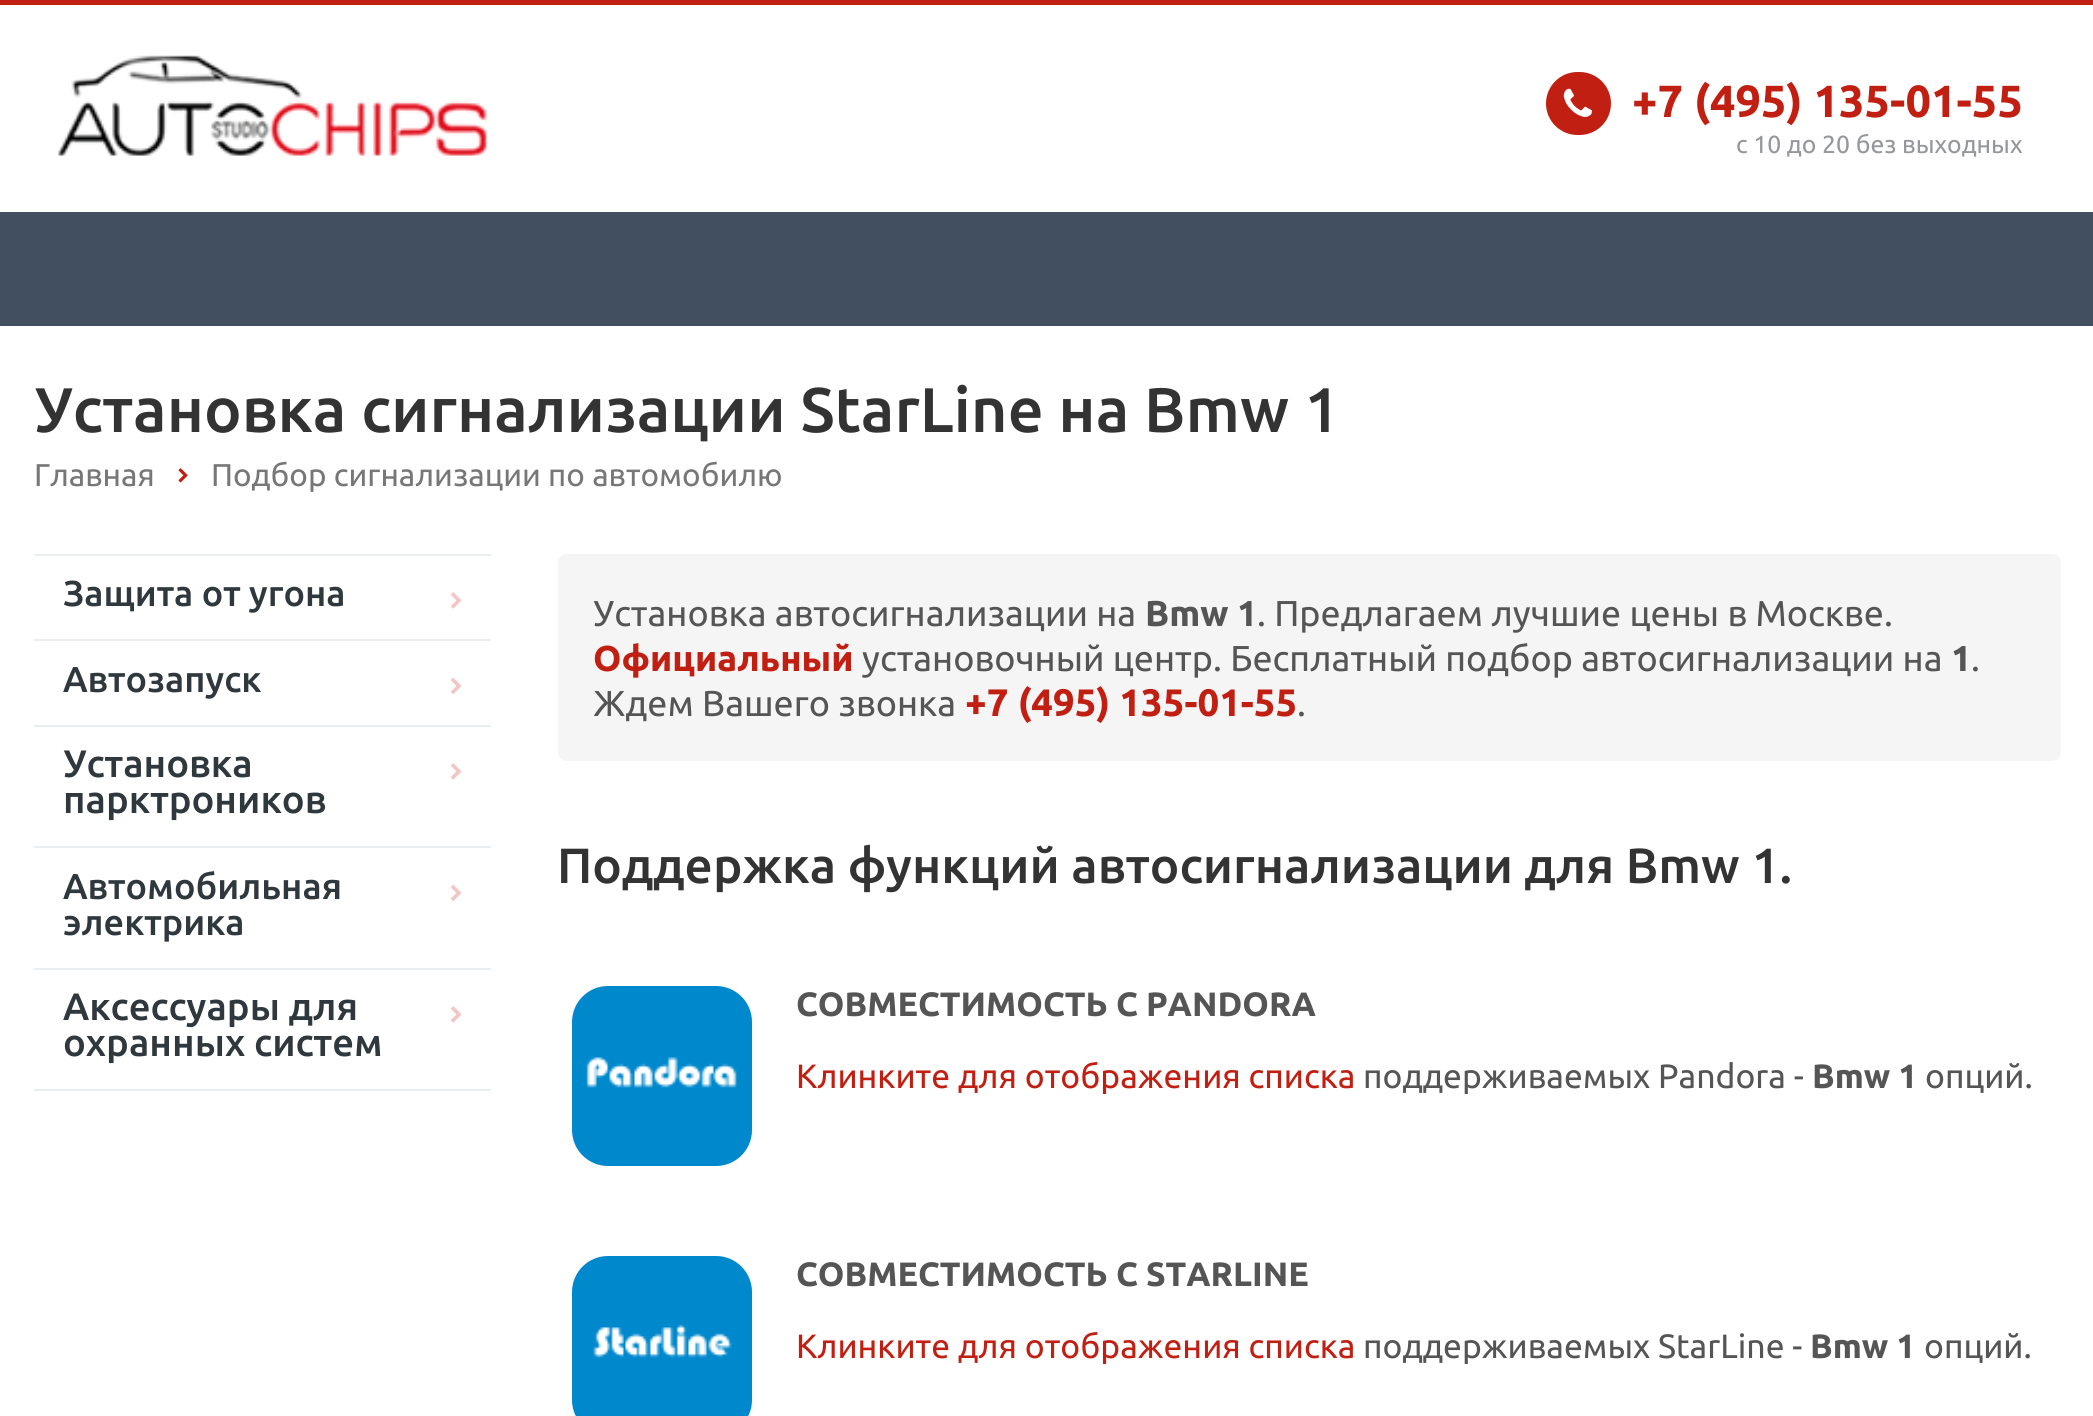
#include <cairo.h>
#include <math.h>
#include <stddef.h>

static cairo_t *ctx;

static void use_color(int r, int g, int b) {
    cairo_set_source_rgb(ctx, r / 255.0, g / 255.0, b / 255.0);
}

static void round_rect(double x, double y, double w, double h, double r) {
    cairo_new_sub_path(ctx);
    cairo_arc(ctx, x + w - r, y + h - r, r, 0, M_PI / 2);
    cairo_arc(ctx, x + r, y + h - r, r, M_PI / 2, M_PI);
    cairo_arc(ctx, x + r, y + r, r, M_PI, 1.5 * M_PI);
    cairo_arc(ctx, x + w - r, y + r, r, 1.5 * M_PI, 2 * M_PI);
    cairo_close_path(ctx);
}

static void picture(const char *path, double x, double y, double w, double h) {
    cairo_surface_t *image = cairo_image_surface_create_from_png(path);
    cairo_save(ctx);
    cairo_set_source_surface(ctx, image, x, y);
    cairo_rectangle(ctx, x, y, w, h);
    cairo_fill(ctx);
    cairo_restore(ctx);
    cairo_surface_destroy(image);
}

int main(void) {
    cairo_surface_t *surface = cairo_image_surface_create(CAIRO_FORMAT_RGB24, 2093, 1416);
    ctx = cairo_create(surface);
    cairo_font_options_t *options = cairo_font_options_create();
    cairo_font_options_set_hint_metrics(options, CAIRO_HINT_METRICS_OFF);
    cairo_font_options_set_hint_style(options, CAIRO_HINT_STYLE_NONE);
    cairo_set_font_options(ctx, options);
    cairo_set_miter_limit(ctx, 4);
    use_color(255, 255, 255);
    cairo_paint(ctx);
    use_color(194, 31, 19);
    cairo_rectangle(ctx, 0, 0, 2093, 5);
    cairo_fill(ctx);
    picture("img1.png", 34, 50, 477, 112);
    round_rect(1546, 72, 65, 63, 31.5);
    cairo_fill(ctx);
    picture("img2.png", 1563, 88, 29, 29);
    cairo_select_font_face(ctx, "Ubuntu", CAIRO_FONT_SLANT_NORMAL, CAIRO_FONT_WEIGHT_BOLD);
    cairo_set_font_size(ctx, 45);
    cairo_move_to(ctx, 1632, 117);
    cairo_show_text(ctx, "+7 (495) 135-01-55");
    cairo_select_font_face(ctx, "Ubuntu", CAIRO_FONT_SLANT_NORMAL, CAIRO_FONT_WEIGHT_NORMAL);
    cairo_set_font_size(ctx, 24.75);
    use_color(149, 151, 154);
    cairo_move_to(ctx, 1736, 153);
    cairo_show_text(ctx, "c 10 до 20 без выходных");
    use_color(66, 79, 96);
    cairo_rectangle(ctx, 0, 212, 2093, 114);
    cairo_fill(ctx);
    cairo_select_font_face(ctx, "Ubuntu Medium", CAIRO_FONT_SLANT_NORMAL, CAIRO_FONT_WEIGHT_NORMAL);
    cairo_set_font_size(ctx, 63);
    use_color(51, 51, 51);
    cairo_move_to(ctx, 34, 432);
    cairo_show_text(ctx, "Установка сигнализации StarLine на Bmw 1");
    cairo_select_font_face(ctx, "Ubuntu", CAIRO_FONT_SLANT_NORMAL, CAIRO_FONT_WEIGHT_NORMAL);
    cairo_set_font_size(ctx, 31.5);
    use_color(119, 119, 119);
    cairo_move_to(ctx, 34, 486);
    cairo_show_text(ctx, "Главная");
    picture("img3.png", 178, 468, 10, 15);
    cairo_move_to(ctx, 211, 486);
    cairo_show_text(ctx, "Подбор сигнализации по автомобилю");
    use_color(235, 238, 241);
    cairo_rectangle(ctx, 34, 1089, 457, 2);
    cairo_fill(ctx);
    cairo_rectangle(ctx, 34, 554, 457, 2);
    cairo_fill(ctx);
    cairo_select_font_face(ctx, "Ubuntu Medium", CAIRO_FONT_SLANT_NORMAL, CAIRO_FONT_WEIGHT_NORMAL);
    cairo_set_font_size(ctx, 36);
    use_color(47, 56, 61);
    cairo_move_to(ctx, 63, 606);
    cairo_show_text(ctx, "Защита от угона");
    picture("img4.png", 451, 592, 11, 17);
    use_color(235, 238, 241);
    cairo_rectangle(ctx, 34, 639, 457, 2);
    cairo_fill(ctx);
    use_color(47, 56, 61);
    cairo_move_to(ctx, 63, 692);
    cairo_show_text(ctx, "Автозапуск");
    picture("img5.png", 451, 678, 11, 16);
    use_color(235, 238, 241);
    cairo_rectangle(ctx, 34, 725, 457, 2);
    cairo_fill(ctx);
    cairo_set_font_size(ctx, 38.25);
    use_color(47, 56, 61);
    cairo_move_to(ctx, 63, 777);
    cairo_show_text(ctx, "Установка");
    picture("img4.png", 451, 763, 11, 17);
    cairo_move_to(ctx, 63, 813);
    cairo_show_text(ctx, "парктроников");
    use_color(235, 238, 241);
    cairo_rectangle(ctx, 34, 846, 457, 2);
    cairo_fill(ctx);
    cairo_set_font_size(ctx, 36);
    use_color(47, 56, 61);
    cairo_move_to(ctx, 63, 899);
    cairo_show_text(ctx, "Автомобильная");
    picture("img5.png", 451, 885, 11, 16);
    cairo_move_to(ctx, 63, 935);
    cairo_show_text(ctx, "электрика");
    use_color(235, 238, 241);
    cairo_rectangle(ctx, 34, 968, 457, 2);
    cairo_fill(ctx);
    cairo_set_font_size(ctx, 38.25);
    use_color(47, 56, 61);
    cairo_move_to(ctx, 63, 1020);
    cairo_show_text(ctx, "Аксессуары для");
    picture("img4.png", 451, 1006, 11, 17);
    cairo_move_to(ctx, 63, 1056);
    cairo_show_text(ctx, "охранных систем");
    use_color(245, 245, 245);
    round_rect(558, 554, 1503, 207, 9);
    cairo_fill(ctx);
    cairo_select_font_face(ctx, "Ubuntu", CAIRO_FONT_SLANT_NORMAL, CAIRO_FONT_WEIGHT_NORMAL);
    cairo_set_font_size(ctx, 36);
    use_color(85, 85, 85);
    cairo_move_to(ctx, 593, 626);
    cairo_show_text(ctx, "Установка автосигнализации на");
    cairo_select_font_face(ctx, "Ubuntu", CAIRO_FONT_SLANT_NORMAL, CAIRO_FONT_WEIGHT_BOLD);
    cairo_move_to(ctx, 1145, 626);
    cairo_show_text(ctx, "Bmw 1");
    cairo_select_font_face(ctx, "Ubuntu", CAIRO_FONT_SLANT_NORMAL, CAIRO_FONT_WEIGHT_NORMAL);
    cairo_move_to(ctx, 1257, 626);
    cairo_show_text(ctx, ". Предлагаем лучшие цены в Москве.");
    cairo_select_font_face(ctx, "Ubuntu", CAIRO_FONT_SLANT_NORMAL, CAIRO_FONT_WEIGHT_BOLD);
    use_color(194, 31, 19);
    cairo_move_to(ctx, 593, 671);
    cairo_show_text(ctx, "Официальный");
    cairo_select_font_face(ctx, "Ubuntu", CAIRO_FONT_SLANT_NORMAL, CAIRO_FONT_WEIGHT_NORMAL);
    use_color(85, 85, 85);
    cairo_move_to(ctx, 862, 671);
    cairo_show_text(ctx, "установочный центр. Бесплатный подбор автосигнализации на");
    cairo_select_font_face(ctx, "Ubuntu", CAIRO_FONT_SLANT_NORMAL, CAIRO_FONT_WEIGHT_BOLD);
    cairo_move_to(ctx, 1951, 671);
    cairo_show_text(ctx, "1");
    cairo_select_font_face(ctx, "Ubuntu", CAIRO_FONT_SLANT_NORMAL, CAIRO_FONT_WEIGHT_NORMAL);
    cairo_move_to(ctx, 1971, 671);
    cairo_show_text(ctx, ".");
    cairo_move_to(ctx, 593, 716);
    cairo_show_text(ctx, "Ждем Вашего звонка");
    cairo_select_font_face(ctx, "Ubuntu", CAIRO_FONT_SLANT_NORMAL, CAIRO_FONT_WEIGHT_BOLD);
    cairo_set_font_size(ctx, 38.25);
    use_color(194, 31, 19);
    cairo_move_to(ctx, 965, 716);
    cairo_show_text(ctx, "+7 (495) 135-01-55");
    cairo_select_font_face(ctx, "Ubuntu", CAIRO_FONT_SLANT_NORMAL, CAIRO_FONT_WEIGHT_NORMAL);
    cairo_set_font_size(ctx, 36);
    use_color(85, 85, 85);
    cairo_move_to(ctx, 1297, 716);
    cairo_show_text(ctx, ".");
    cairo_select_font_face(ctx, "Ubuntu Medium", CAIRO_FONT_SLANT_NORMAL, CAIRO_FONT_WEIGHT_NORMAL);
    cairo_set_font_size(ctx, 49.5);
    use_color(51, 51, 51);
    cairo_move_to(ctx, 557, 883);
    cairo_show_text(ctx, "Поддержка функций автосигнализации для Bmw 1.");
    use_color(0, 136, 204);
    round_rect(577.5, 991.5, 169, 169, 30.5);
    cairo_fill_preserve(ctx);
    cairo_set_line_width(ctx, 11);
    cairo_stroke(ctx);
    picture("img6.png", 586, 1057, 151, 31);
    cairo_select_font_face(ctx, "Ubuntu", CAIRO_FONT_SLANT_NORMAL, CAIRO_FONT_WEIGHT_BOLD);
    cairo_set_font_size(ctx, 33.75);
    use_color(85, 85, 85);
    cairo_move_to(ctx, 796, 1016);
    cairo_show_text(ctx, "СОВМЕСТИМОСТЬ С PANDORA");
    cairo_save(ctx);
    cairo_rectangle(ctx, 797, 986, 1251, 108);
    cairo_clip(ctx);
    cairo_select_font_face(ctx, "Ubuntu", CAIRO_FONT_SLANT_NORMAL, CAIRO_FONT_WEIGHT_NORMAL);
    use_color(194, 31, 19);
    cairo_move_to(ctx, 796, 1088);
    cairo_show_text(ctx, "Клинките для отображения списка");
    use_color(85, 85, 85);
    cairo_move_to(ctx, 1363, 1088);
    cairo_show_text(ctx, "поддерживаемых Pandora -");
    cairo_restore(ctx);
    cairo_move_to(ctx, 1812, 1088);
    cairo_show_text(ctx, "Bmw 1");
    cairo_select_font_face(ctx, "Ubuntu", CAIRO_FONT_SLANT_NORMAL, CAIRO_FONT_WEIGHT_NORMAL);
    cairo_move_to(ctx, 1925, 1088);
    cairo_show_text(ctx, "опций.");
    use_color(0, 136, 204);
    round_rect(577.5, 1261.5, 169, 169, 30.5);
    cairo_fill_preserve(ctx);
    cairo_stroke(ctx);
    picture("img7.png", 593, 1324, 139, 34);
    cairo_select_font_face(ctx, "Ubuntu", CAIRO_FONT_SLANT_NORMAL, CAIRO_FONT_WEIGHT_BOLD);
    use_color(85, 85, 85);
    cairo_move_to(ctx, 796, 1286);
    cairo_show_text(ctx, "СОВМЕСТИМОСТЬ С STARLINE");
    cairo_save(ctx);
    cairo_rectangle(ctx, 797, 1256, 1251, 108);
    cairo_clip(ctx);
    cairo_select_font_face(ctx, "Ubuntu", CAIRO_FONT_SLANT_NORMAL, CAIRO_FONT_WEIGHT_NORMAL);
    use_color(194, 31, 19);
    cairo_move_to(ctx, 796, 1358);
    cairo_show_text(ctx, "Клинките для отображения списка");
    use_color(85, 85, 85);
    cairo_move_to(ctx, 1363, 1358);
    cairo_show_text(ctx, "поддерживаемых StarLine -");
    cairo_restore(ctx);
    cairo_move_to(ctx, 1810, 1358);
    cairo_show_text(ctx, "Bmw 1");
    cairo_select_font_face(ctx, "Ubuntu", CAIRO_FONT_SLANT_NORMAL, CAIRO_FONT_WEIGHT_NORMAL);
    cairo_move_to(ctx, 1924, 1358);
    cairo_show_text(ctx, "опций.");
    cairo_surface_write_to_png(surface, "result.png");
    cairo_font_options_destroy(options);
    cairo_destroy(ctx);
    cairo_surface_destroy(surface);
    return 0;
}
